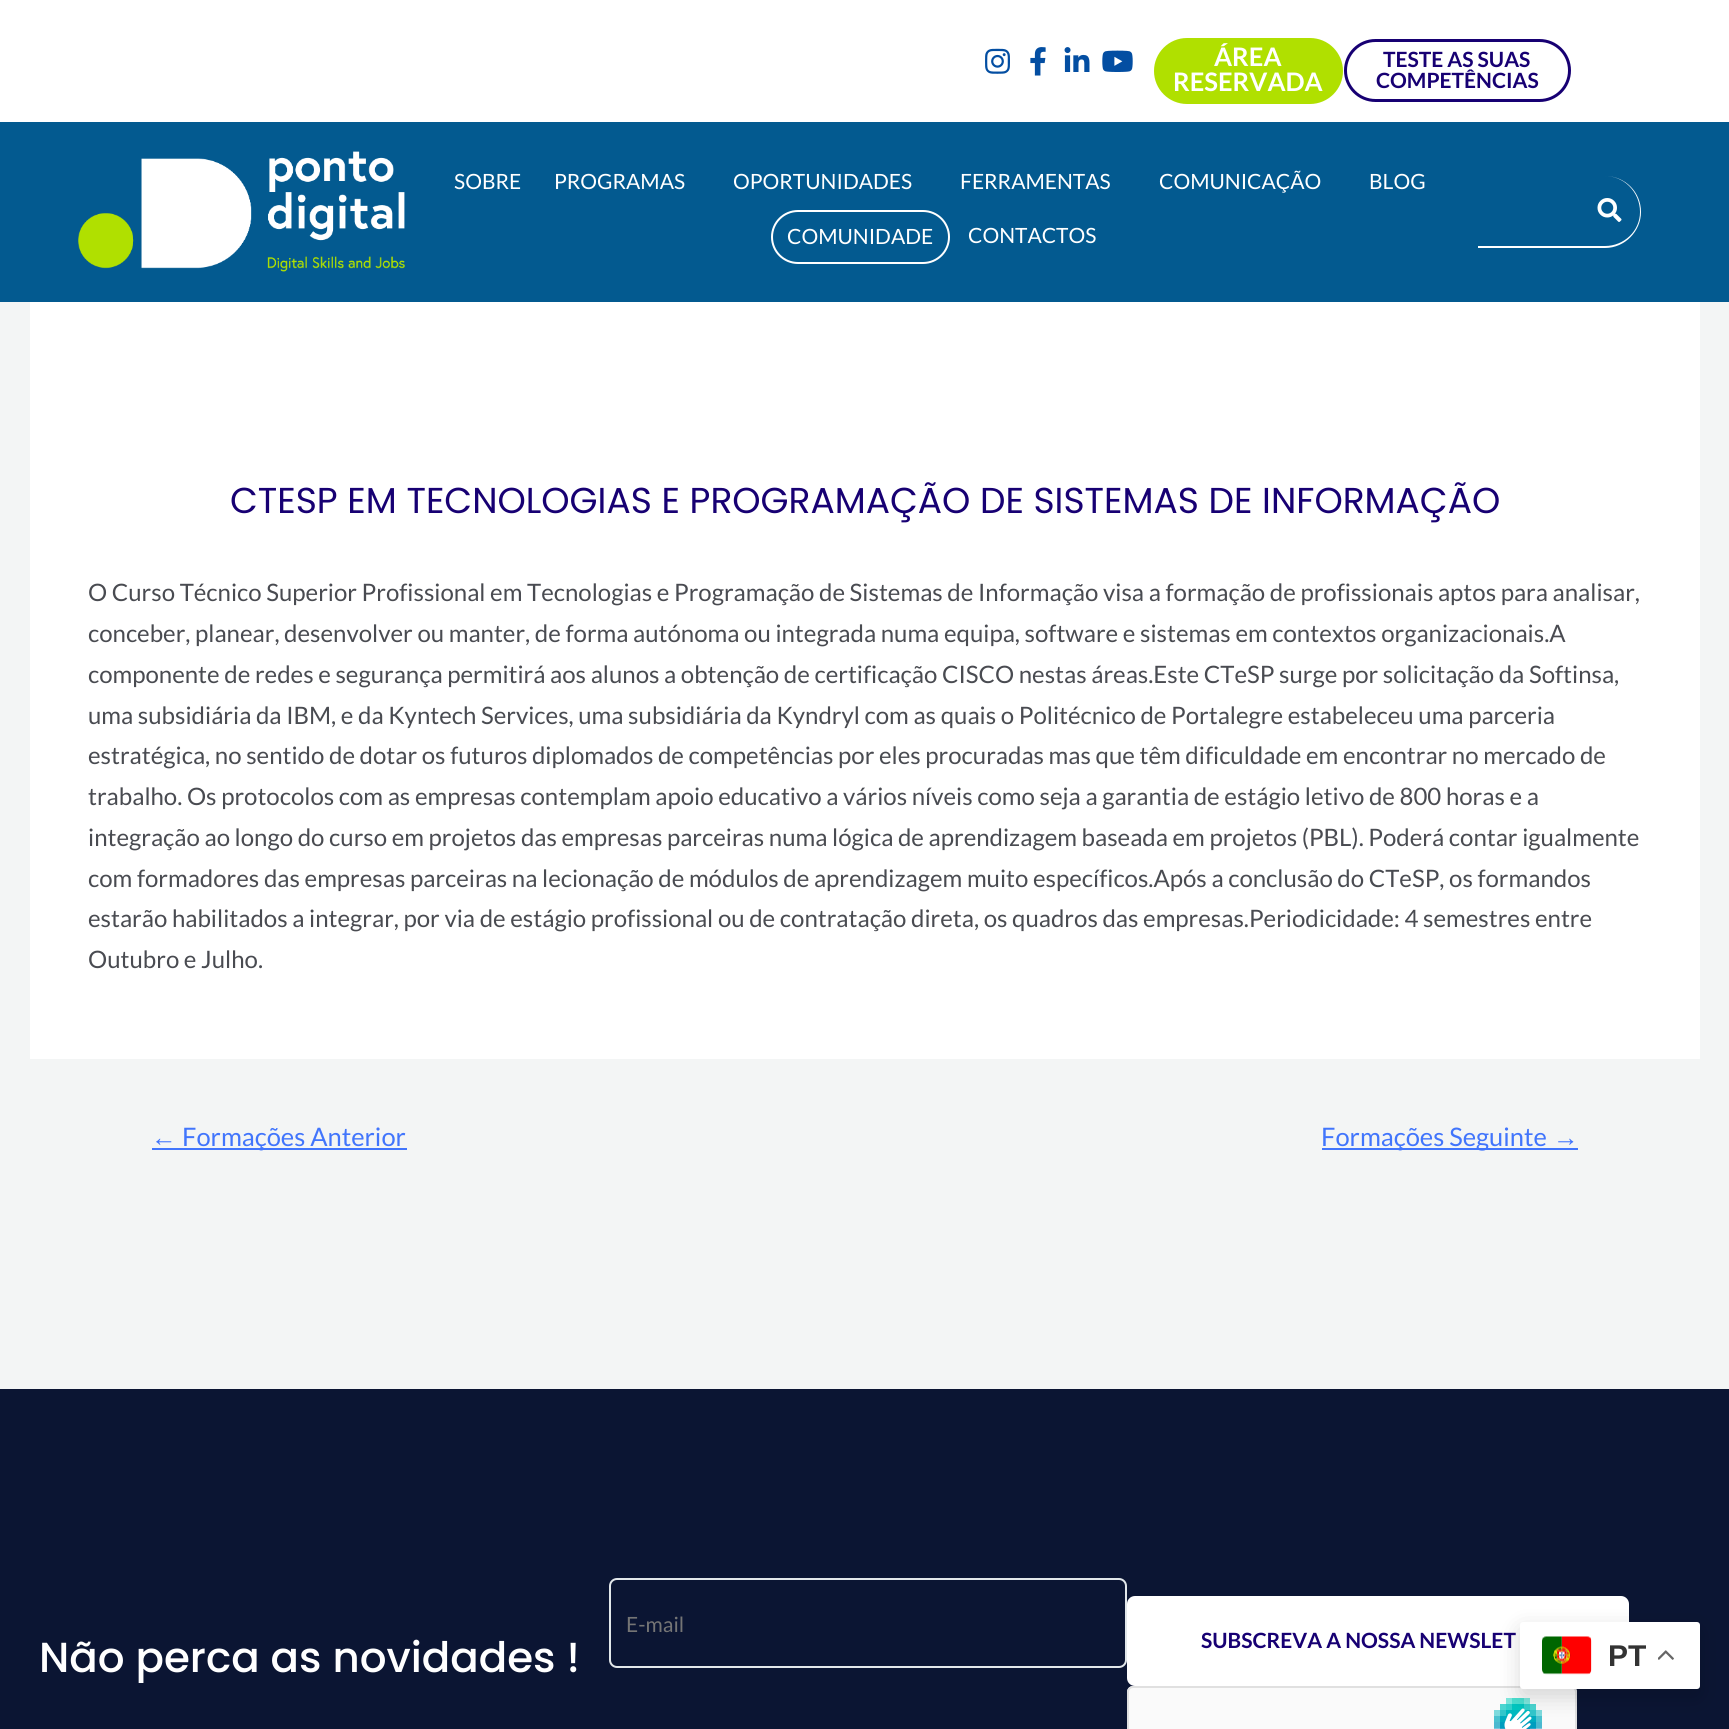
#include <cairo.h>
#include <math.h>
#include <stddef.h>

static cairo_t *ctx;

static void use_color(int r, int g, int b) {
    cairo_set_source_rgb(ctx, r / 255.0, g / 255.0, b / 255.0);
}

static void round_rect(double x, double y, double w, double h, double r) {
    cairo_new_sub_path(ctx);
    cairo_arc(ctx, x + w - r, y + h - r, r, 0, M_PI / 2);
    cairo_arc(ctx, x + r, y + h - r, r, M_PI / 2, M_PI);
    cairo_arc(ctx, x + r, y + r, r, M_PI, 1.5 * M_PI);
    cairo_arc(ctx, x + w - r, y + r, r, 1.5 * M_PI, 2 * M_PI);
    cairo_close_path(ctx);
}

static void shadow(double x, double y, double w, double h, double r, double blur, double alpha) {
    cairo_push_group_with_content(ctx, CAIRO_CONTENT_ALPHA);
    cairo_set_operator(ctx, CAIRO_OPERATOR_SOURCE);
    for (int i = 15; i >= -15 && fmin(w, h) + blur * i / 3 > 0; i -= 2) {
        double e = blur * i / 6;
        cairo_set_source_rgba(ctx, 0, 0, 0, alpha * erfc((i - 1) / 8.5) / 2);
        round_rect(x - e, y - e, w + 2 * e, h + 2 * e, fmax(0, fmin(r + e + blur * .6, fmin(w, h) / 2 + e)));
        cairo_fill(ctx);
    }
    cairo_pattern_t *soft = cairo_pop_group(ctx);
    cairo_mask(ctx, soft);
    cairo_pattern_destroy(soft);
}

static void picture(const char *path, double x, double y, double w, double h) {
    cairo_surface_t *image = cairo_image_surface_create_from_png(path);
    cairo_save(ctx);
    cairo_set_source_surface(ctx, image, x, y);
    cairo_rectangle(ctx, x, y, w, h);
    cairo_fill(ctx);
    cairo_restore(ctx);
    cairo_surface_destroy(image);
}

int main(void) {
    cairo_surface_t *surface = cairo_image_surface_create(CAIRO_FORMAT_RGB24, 1729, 1729);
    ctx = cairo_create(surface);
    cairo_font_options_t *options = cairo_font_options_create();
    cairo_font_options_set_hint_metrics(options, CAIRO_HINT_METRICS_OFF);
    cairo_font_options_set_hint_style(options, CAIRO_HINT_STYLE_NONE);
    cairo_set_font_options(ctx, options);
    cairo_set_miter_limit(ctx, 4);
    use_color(243, 245, 245);
    cairo_paint(ctx);
    use_color(255, 255, 255);
    cairo_rectangle(ctx, 0, 0, 1729, 122);
    cairo_fill(ctx);
    picture("img1.png", 985, 48, 25, 26);
    picture("img2.png", 1030, 47, 16, 29);
    picture("img3.png", 1064, 47, 26, 25);
    picture("img4.png", 1102, 50, 31, 22);
    use_color(176, 224, 0);
    round_rect(1155, 39, 187, 64, 32);
    cairo_fill_preserve(ctx);
    cairo_stroke(ctx);
    cairo_select_font_face(ctx, "Lato", CAIRO_FONT_SLANT_NORMAL, CAIRO_FONT_WEIGHT_BOLD);
    cairo_set_font_size(ctx, 25.5);
    use_color(255, 255, 255);
    cairo_move_to(ctx, 1214, 66);
    cairo_show_text(ctx, "ÁREA");
    cairo_move_to(ctx, 1173, 91);
    cairo_show_text(ctx, "RESERVADA");
    round_rect(1345.5, 40.5, 224, 60, 30);
    use_color(23, 0, 115);
    cairo_set_line_width(ctx, 3);
    cairo_stroke(ctx);
    cairo_set_font_size(ctx, 21);
    cairo_move_to(ctx, 1383, 67);
    cairo_show_text(ctx, "TESTE AS SUAS");
    cairo_move_to(ctx, 1376, 88);
    cairo_show_text(ctx, "COMPETÊNCIAS");
    use_color(3, 90, 144);
    cairo_rectangle(ctx, 0, 122, 1729, 180);
    cairo_fill(ctx);
    picture("img5.png", 78, 151, 327, 121);
    cairo_select_font_face(ctx, "Lato", CAIRO_FONT_SLANT_NORMAL, CAIRO_FONT_WEIGHT_NORMAL);
    use_color(255, 255, 255);
    cairo_move_to(ctx, 454, 189);
    cairo_show_text(ctx, "SOBRE");
    cairo_move_to(ctx, 554, 189);
    cairo_show_text(ctx, "PROGRAMAS");
    cairo_move_to(ctx, 733, 189);
    cairo_show_text(ctx, "OPORTUNIDADES");
    cairo_move_to(ctx, 960, 189);
    cairo_show_text(ctx, "FERRAMENTAS");
    cairo_move_to(ctx, 1159, 189);
    cairo_show_text(ctx, "COMUNICAÇÃO");
    cairo_move_to(ctx, 1369, 189);
    cairo_show_text(ctx, "BLOG");
    round_rect(772, 211, 177, 52, 26);
    cairo_set_line_width(ctx, 2);
    cairo_stroke(ctx);
    cairo_move_to(ctx, 787, 244);
    cairo_show_text(ctx, "COMUNIDADE");
    cairo_move_to(ctx, 968, 243);
    cairo_show_text(ctx, "CONTACTOS");
    cairo_set_fill_rule(ctx, CAIRO_FILL_RULE_EVEN_ODD);
    cairo_new_path(ctx);
    cairo_move_to(ctx, 1514, 176);
    cairo_line_to(ctx, 1605, 176);
    cairo_curve_to(ctx, 1625, 176, 1641, 192, 1641, 212);
    cairo_curve_to(ctx, 1641, 231, 1625, 248, 1605, 248);
    cairo_line_to(ctx, 1478, 248);
    cairo_line_to(ctx, 1478, 212);
    cairo_curve_to(ctx, 1478, 192, 1494, 176, 1514, 176);
    cairo_close_path(ctx);
    cairo_move_to(ctx, 1514, 176);
    cairo_line_to(ctx, 1605, 176);
    cairo_curve_to(ctx, 1624, 176, 1640, 192, 1640, 212);
    cairo_curve_to(ctx, 1640, 231, 1624, 246, 1605, 246);
    cairo_line_to(ctx, 1478, 246);
    cairo_line_to(ctx, 1478, 212);
    cairo_curve_to(ctx, 1478, 192, 1494, 176, 1514, 176);
    cairo_close_path(ctx);
    cairo_fill(ctx);
    picture("img6.png", 1597, 198, 25, 24);
    cairo_rectangle(ctx, 30, 302, 1670, 757);
    cairo_fill(ctx);
    cairo_select_font_face(ctx, "Poppins", CAIRO_FONT_SLANT_NORMAL, CAIRO_FONT_WEIGHT_NORMAL);
    cairo_set_font_size(ctx, 36);
    use_color(23, 0, 115);
    cairo_move_to(ctx, 230, 513);
    cairo_show_text(ctx, "CTESP EM TECNOLOGIAS E PROGRAMAÇÃO DE SISTEMAS DE INFORMAÇÃO");
    cairo_select_font_face(ctx, "Lato", CAIRO_FONT_SLANT_NORMAL, CAIRO_FONT_WEIGHT_NORMAL);
    cairo_set_font_size(ctx, 24);
    use_color(73, 75, 81);
    cairo_move_to(ctx, 88, 601);
    cairo_show_text(ctx, "O Curso Técnico Superior Profissional em Tecnologias e Programação de Sistemas de Informação visa a formação de profissionais aptos para analisar,");
    cairo_move_to(ctx, 88, 642);
    cairo_show_text(ctx, "conceber, planear, desenvolver ou manter, de forma autónoma ou integrada numa equipa, software e sistemas em contextos organizacionais.A");
    cairo_move_to(ctx, 88, 683);
    cairo_show_text(ctx, "componente de redes e segurança permitirá aos alunos a obtenção de certificação CISCO nestas áreas.Este CTeSP surge por solicitação da Softinsa,");
    cairo_move_to(ctx, 88, 724);
    cairo_show_text(ctx, "uma subsidiária da IBM, e da Kyntech Services, uma subsidiária da Kyndryl com as quais o Politécnico de Portalegre estabeleceu uma parceria");
    cairo_move_to(ctx, 88, 764);
    cairo_show_text(ctx, "estratégica, no sentido de dotar os futuros diplomados de competências por eles procuradas mas que têm dificuldade em encontrar no mercado de");
    cairo_move_to(ctx, 88, 805);
    cairo_show_text(ctx, "trabalho. Os protocolos com as empresas contemplam apoio educativo a vários níveis como seja a garantia de estágio letivo de 800 horas e a");
    cairo_move_to(ctx, 88, 846);
    cairo_show_text(ctx, "integração ao longo do curso em projetos das empresas parceiras numa lógica de aprendizagem baseada em projetos (PBL). Poderá contar igualmente");
    cairo_move_to(ctx, 88, 887);
    cairo_show_text(ctx, "com formadores das empresas parceiras na lecionação de módulos de aprendizagem muito específicos.Após a conclusão do CTeSP, os formandos");
    cairo_move_to(ctx, 88, 927);
    cairo_show_text(ctx, "estarão habilitados a integrar, por via de estágio profissional ou de contratação direta, os quadros das empresas.Periodicidade: 4 semestres entre");
    cairo_move_to(ctx, 88, 968);
    cairo_show_text(ctx, "Outubro e Julho.");
    cairo_select_font_face(ctx, "Liberation Sans", CAIRO_FONT_SLANT_NORMAL, CAIRO_FONT_WEIGHT_NORMAL);
    cairo_set_font_size(ctx, 25.5);
    use_color(65, 117, 252);
    cairo_move_to(ctx, 151, 1146);
    cairo_show_text(ctx, "←");
    cairo_rectangle(ctx, 152, 1148, 255, 2);
    cairo_fill(ctx);
    cairo_select_font_face(ctx, "Lato", CAIRO_FONT_SLANT_NORMAL, CAIRO_FONT_WEIGHT_NORMAL);
    cairo_move_to(ctx, 182, 1146);
    cairo_show_text(ctx, "Formações Anterior");
    cairo_rectangle(ctx, 1322, 1148, 256, 2);
    cairo_fill(ctx);
    cairo_move_to(ctx, 1321, 1146);
    cairo_show_text(ctx, "Formações Seguinte");
    cairo_select_font_face(ctx, "Liberation Sans", CAIRO_FONT_SLANT_NORMAL, CAIRO_FONT_WEIGHT_NORMAL);
    cairo_move_to(ctx, 1553, 1146);
    cairo_show_text(ctx, "→");
    use_color(11, 21, 51);
    cairo_rectangle(ctx, 0, 1389, 1729, 340);
    cairo_fill(ctx);
    round_rect(610, 1579, 516, 88, 7);
    use_color(226, 231, 234);
    cairo_stroke(ctx);
    cairo_select_font_face(ctx, "Lato", CAIRO_FONT_SLANT_NORMAL, CAIRO_FONT_WEIGHT_NORMAL);
    cairo_set_font_size(ctx, 21);
    use_color(117, 117, 117);
    cairo_move_to(ctx, 626, 1632);
    cairo_show_text(ctx, "E-mail");
    use_color(255, 255, 255);
    round_rect(1127, 1596, 502, 90, 8);
    cairo_fill(ctx);
    cairo_select_font_face(ctx, "Lato", CAIRO_FONT_SLANT_NORMAL, CAIRO_FONT_WEIGHT_BOLD);
    use_color(23, 0, 115);
    cairo_move_to(ctx, 1201, 1648);
    cairo_show_text(ctx, "SUBSCREVA A NOSSA NEWSLET");
    use_color(250, 250, 250);
    round_rect(1127, 1686, 450, 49, 6);
    cairo_fill(ctx);
    picture("img7.png", 1494, 1698, 48, 31);
    round_rect(1128, 1687, 448, 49, 5);
    use_color(224, 224, 224);
    cairo_stroke(ctx);
    cairo_select_font_face(ctx, "Poppins Medium", CAIRO_FONT_SLANT_NORMAL, CAIRO_FONT_WEIGHT_NORMAL);
    cairo_set_font_size(ctx, 42);
    use_color(255, 255, 255);
    cairo_move_to(ctx, 39, 1672);
    cairo_show_text(ctx, "Não perca as novidades !");
    use_color(0, 0, 0);
    shadow(1520, 1629, 180, 68, 3, 11, 0.15);
    use_color(255, 255, 255);
    round_rect(1520, 1622, 180, 67, 3);
    cairo_fill(ctx);
    picture("img8.png", 1542, 1636, 50, 39);
    cairo_select_font_face(ctx, "Liberation Sans", CAIRO_FONT_SLANT_NORMAL, CAIRO_FONT_WEIGHT_BOLD);
    cairo_set_font_size(ctx, 30);
    use_color(51, 51, 51);
    cairo_move_to(ctx, 1608, 1666);
    cairo_show_text(ctx, "PT");
    picture("img9.png", 1658, 1650, 16, 10);
    cairo_surface_write_to_png(surface, "result.png");
    cairo_font_options_destroy(options);
    cairo_destroy(ctx);
    cairo_surface_destroy(surface);
    return 0;
}
